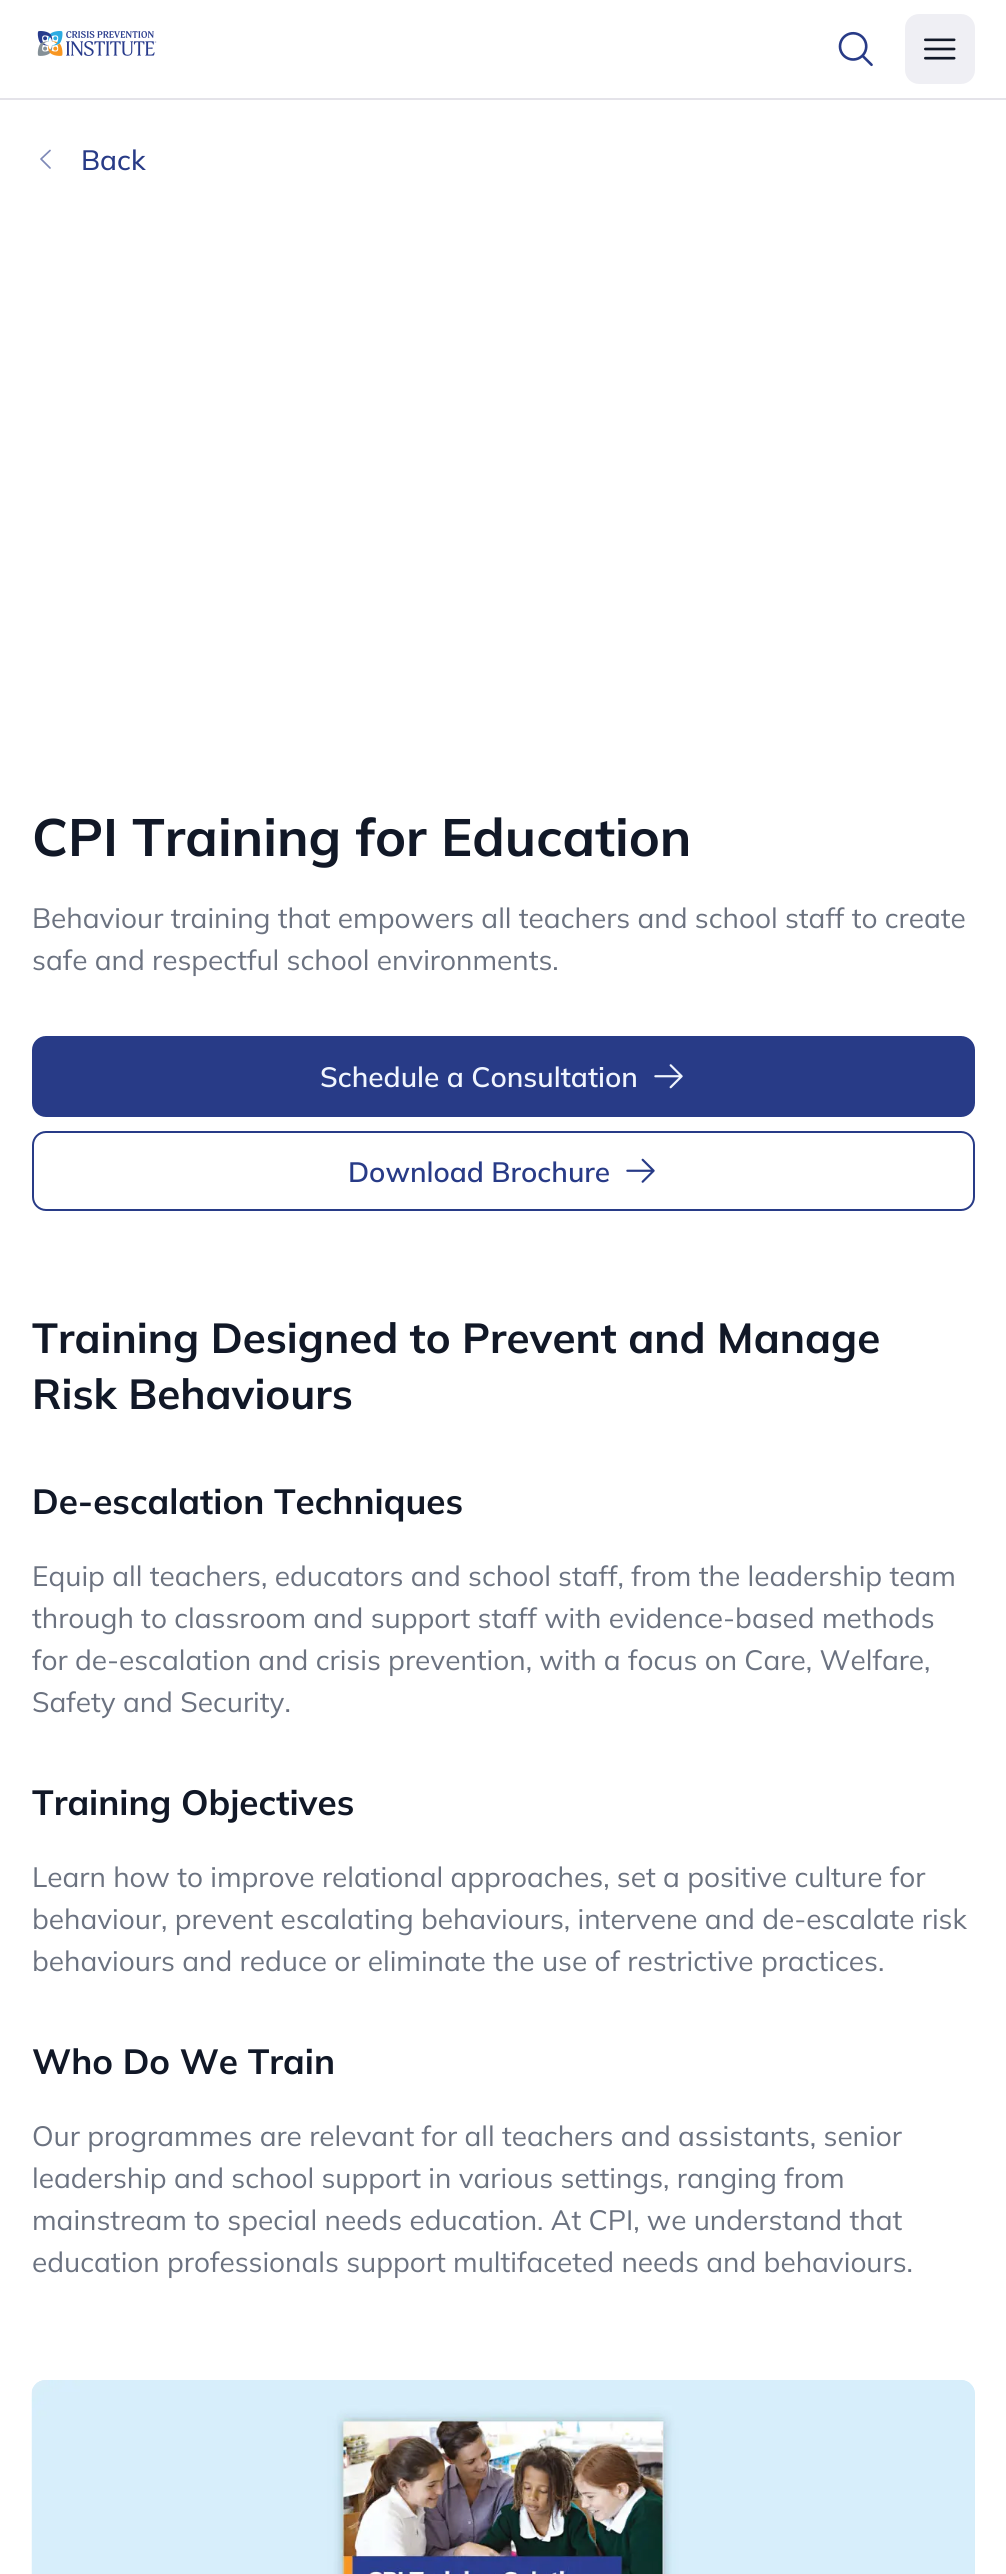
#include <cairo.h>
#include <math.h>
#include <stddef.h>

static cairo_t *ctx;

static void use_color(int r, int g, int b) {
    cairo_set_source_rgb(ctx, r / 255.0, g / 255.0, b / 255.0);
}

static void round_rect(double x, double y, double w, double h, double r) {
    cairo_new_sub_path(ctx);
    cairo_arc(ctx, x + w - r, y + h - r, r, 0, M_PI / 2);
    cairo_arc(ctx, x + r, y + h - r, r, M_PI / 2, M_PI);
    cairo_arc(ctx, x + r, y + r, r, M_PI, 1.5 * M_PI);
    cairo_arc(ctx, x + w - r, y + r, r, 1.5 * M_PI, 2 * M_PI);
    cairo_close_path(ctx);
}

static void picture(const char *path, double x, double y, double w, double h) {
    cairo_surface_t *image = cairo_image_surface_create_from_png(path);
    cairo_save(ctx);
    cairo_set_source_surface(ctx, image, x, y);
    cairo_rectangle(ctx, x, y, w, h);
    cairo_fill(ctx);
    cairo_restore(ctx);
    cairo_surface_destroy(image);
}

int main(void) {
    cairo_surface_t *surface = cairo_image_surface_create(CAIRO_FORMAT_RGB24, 1006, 2574);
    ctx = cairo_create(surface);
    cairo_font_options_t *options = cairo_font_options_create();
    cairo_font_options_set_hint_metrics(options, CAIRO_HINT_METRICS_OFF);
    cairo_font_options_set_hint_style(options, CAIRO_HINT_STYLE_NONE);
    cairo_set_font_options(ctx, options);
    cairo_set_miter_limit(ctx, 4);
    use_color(255, 255, 255);
    cairo_paint(ctx);
    use_color(228, 227, 233);
    cairo_rectangle(ctx, 0, 98, 1006, 2);
    cairo_fill(ctx);
    picture("img1.png", 37, 31, 120, 25);
    picture("img2.png", 838, 31, 35, 36);
    use_color(239, 239, 244);
    round_rect(905, 14, 70, 70, 14);
    cairo_fill(ctx);
    picture("img3.png", 924, 38, 32, 22);
    cairo_new_path(ctx);
    cairo_move_to(ctx, 50, 168);
    cairo_line_to(ctx, 41, 159);
    cairo_line_to(ctx, 50, 150.5);
    use_color(126, 137, 183);
    cairo_set_line_width(ctx, 1.7);
    cairo_set_line_cap(ctx, CAIRO_LINE_CAP_ROUND);
    cairo_set_line_join(ctx, CAIRO_LINE_JOIN_ROUND);
    cairo_stroke(ctx);
    cairo_select_font_face(ctx, "Mulish Medium", CAIRO_FONT_SLANT_NORMAL, CAIRO_FONT_WEIGHT_NORMAL);
    cairo_set_font_size(ctx, 28);
    use_color(40, 59, 135);
    cairo_move_to(ctx, 81, 170);
    cairo_show_text(ctx, "Back");
    cairo_select_font_face(ctx, "Mulish", CAIRO_FONT_SLANT_NORMAL, CAIRO_FONT_WEIGHT_BOLD);
    cairo_set_font_size(ctx, 52.5);
    use_color(17, 24, 39);
    cairo_move_to(ctx, 32, 856);
    cairo_show_text(ctx, "CPI Training for Education");
    cairo_select_font_face(ctx, "Mulish", CAIRO_FONT_SLANT_NORMAL, CAIRO_FONT_WEIGHT_NORMAL);
    cairo_set_font_size(ctx, 28);
    use_color(107, 114, 128);
    cairo_move_to(ctx, 32, 928);
    cairo_show_text(ctx, "Behaviour training that empowers all teachers and school staff to create");
    cairo_move_to(ctx, 32, 970);
    cairo_show_text(ctx, "safe and respectful school environments.");
    use_color(40, 59, 135);
    round_rect(33, 1037, 941, 79, 13);
    cairo_fill_preserve(ctx);
    cairo_set_line_width(ctx, 2);
    cairo_set_line_cap(ctx, CAIRO_LINE_CAP_BUTT);
    cairo_set_line_join(ctx, CAIRO_LINE_JOIN_MITER);
    cairo_stroke(ctx);
    cairo_select_font_face(ctx, "Mulish SemiBold", CAIRO_FONT_SLANT_NORMAL, CAIRO_FONT_WEIGHT_NORMAL);
    use_color(240, 245, 254);
    cairo_move_to(ctx, 320, 1087);
    cairo_show_text(ctx, "Schedule a Consultation");
    picture("img4.png", 654, 1064, 29, 25);
    round_rect(33, 1132, 941, 78, 13);
    use_color(40, 59, 135);
    cairo_stroke(ctx);
    cairo_move_to(ctx, 348, 1182);
    cairo_show_text(ctx, "Download Brochure");
    picture("img5.png", 626, 1158, 29, 25);
    cairo_select_font_face(ctx, "Mulish", CAIRO_FONT_SLANT_NORMAL, CAIRO_FONT_WEIGHT_BOLD);
    cairo_set_font_size(ctx, 42);
    use_color(17, 24, 39);
    cairo_move_to(ctx, 32, 1353);
    cairo_show_text(ctx, "Training Designed to Prevent and Manage");
    cairo_move_to(ctx, 32, 1409);
    cairo_show_text(ctx, "Risk Behaviours");
    cairo_set_font_size(ctx, 35);
    cairo_move_to(ctx, 32, 1514);
    cairo_show_text(ctx, "De-escalation Techniques");
    cairo_select_font_face(ctx, "Mulish", CAIRO_FONT_SLANT_NORMAL, CAIRO_FONT_WEIGHT_NORMAL);
    cairo_set_font_size(ctx, 28);
    use_color(107, 114, 128);
    cairo_move_to(ctx, 32, 1586);
    cairo_show_text(ctx, "Equip all teachers, educators and school staff, from the leadership team");
    cairo_move_to(ctx, 32, 1628);
    cairo_show_text(ctx, "through to classroom and support staff with evidence-based methods");
    cairo_move_to(ctx, 32, 1670);
    cairo_show_text(ctx, "for de-escalation and crisis prevention, with a focus on Care, Welfare,");
    cairo_move_to(ctx, 32, 1712);
    cairo_show_text(ctx, "Safety and Security.");
    cairo_select_font_face(ctx, "Mulish", CAIRO_FONT_SLANT_NORMAL, CAIRO_FONT_WEIGHT_BOLD);
    cairo_set_font_size(ctx, 35);
    use_color(17, 24, 39);
    cairo_move_to(ctx, 32, 1815);
    cairo_show_text(ctx, "Training Objectives");
    cairo_select_font_face(ctx, "Mulish", CAIRO_FONT_SLANT_NORMAL, CAIRO_FONT_WEIGHT_NORMAL);
    cairo_set_font_size(ctx, 28);
    use_color(107, 114, 128);
    cairo_move_to(ctx, 32, 1887);
    cairo_show_text(ctx, "Learn how to improve relational approaches, set a positive culture for");
    cairo_move_to(ctx, 32, 1929);
    cairo_show_text(ctx, "behaviour, prevent escalating behaviours, intervene and de-escalate risk");
    cairo_move_to(ctx, 32, 1971);
    cairo_show_text(ctx, "behaviours and reduce or eliminate the use of restrictive practices.");
    cairo_select_font_face(ctx, "Mulish", CAIRO_FONT_SLANT_NORMAL, CAIRO_FONT_WEIGHT_BOLD);
    cairo_set_font_size(ctx, 35);
    use_color(17, 24, 39);
    cairo_move_to(ctx, 32, 2074);
    cairo_show_text(ctx, "Who Do We Train");
    cairo_select_font_face(ctx, "Mulish", CAIRO_FONT_SLANT_NORMAL, CAIRO_FONT_WEIGHT_NORMAL);
    cairo_set_font_size(ctx, 28);
    use_color(107, 114, 128);
    cairo_move_to(ctx, 32, 2146);
    cairo_show_text(ctx, "Our programmes are relevant for all teachers and assistants, senior");
    cairo_move_to(ctx, 32, 2188);
    cairo_show_text(ctx, "leadership and school support in various settings, ranging from");
    cairo_move_to(ctx, 32, 2230);
    cairo_show_text(ctx, "mainstream to special needs education. At CPI, we understand that");
    cairo_move_to(ctx, 32, 2272);
    cairo_show_text(ctx, "education professionals support multifaceted needs and behaviours.");
    use_color(213, 238, 249);
    round_rect(32, 2380, 943, 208, 14);
    cairo_fill(ctx);
    picture("img6.png", 31, 2380, 944, 194);
    cairo_surface_write_to_png(surface, "result.png");
    cairo_font_options_destroy(options);
    cairo_destroy(ctx);
    cairo_surface_destroy(surface);
    return 0;
}
